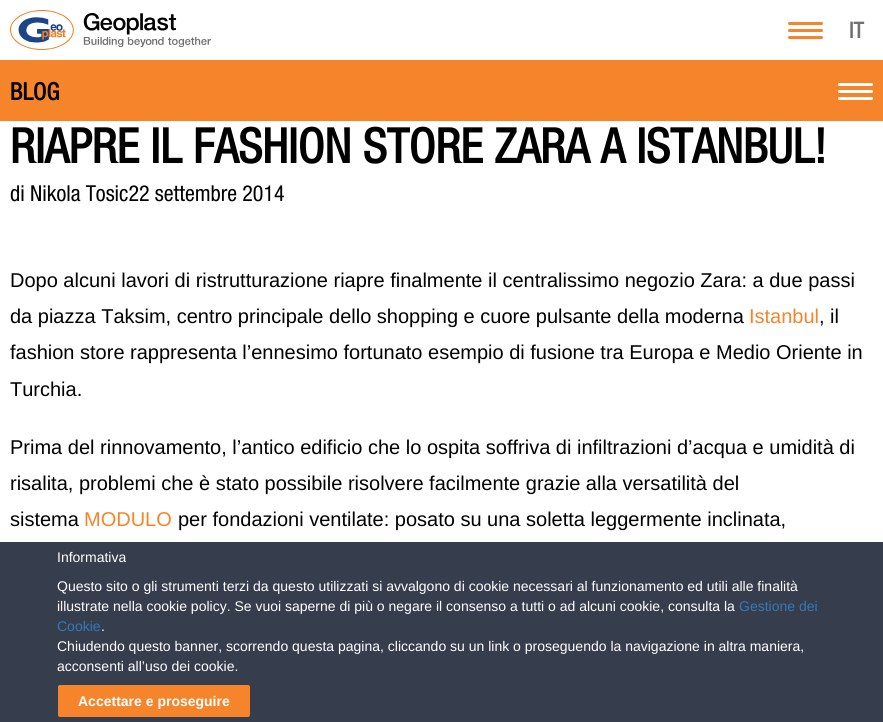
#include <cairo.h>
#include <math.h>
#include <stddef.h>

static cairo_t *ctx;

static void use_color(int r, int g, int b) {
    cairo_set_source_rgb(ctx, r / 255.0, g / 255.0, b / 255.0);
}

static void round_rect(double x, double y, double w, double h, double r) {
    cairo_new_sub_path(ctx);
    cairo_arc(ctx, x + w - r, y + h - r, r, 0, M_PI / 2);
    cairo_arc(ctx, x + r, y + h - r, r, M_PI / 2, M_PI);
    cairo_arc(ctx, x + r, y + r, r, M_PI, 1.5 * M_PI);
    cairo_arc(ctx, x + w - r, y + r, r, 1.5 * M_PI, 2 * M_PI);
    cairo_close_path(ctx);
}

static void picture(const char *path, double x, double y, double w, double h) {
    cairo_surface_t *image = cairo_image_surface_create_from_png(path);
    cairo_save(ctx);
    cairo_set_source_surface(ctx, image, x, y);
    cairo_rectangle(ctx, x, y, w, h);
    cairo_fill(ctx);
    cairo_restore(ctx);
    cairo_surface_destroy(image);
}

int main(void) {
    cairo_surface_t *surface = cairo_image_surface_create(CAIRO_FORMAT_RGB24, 883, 722);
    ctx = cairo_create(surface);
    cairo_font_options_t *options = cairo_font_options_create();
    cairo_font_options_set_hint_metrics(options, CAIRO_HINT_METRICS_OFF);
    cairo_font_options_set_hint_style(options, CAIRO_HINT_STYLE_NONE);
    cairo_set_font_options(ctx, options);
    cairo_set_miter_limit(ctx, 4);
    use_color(255, 255, 255);
    cairo_paint(ctx);
    picture("img1.png", 10, 10, 201, 40);
    use_color(245, 132, 43);
    round_rect(788, 29, 35, 3, 1.5);
    cairo_fill(ctx);
    round_rect(788, 22, 35, 3, 1.5);
    cairo_fill(ctx);
    round_rect(788, 36, 35, 3, 1.5);
    cairo_fill(ctx);
    cairo_select_font_face(ctx, "Helvetica Neue", CAIRO_FONT_SLANT_NORMAL, CAIRO_FONT_WEIGHT_BOLD);
    cairo_set_font_size(ctx, 22);
    use_color(112, 112, 112);
    cairo_move_to(ctx, 849, 38);
    cairo_show_text(ctx, "IT");
    use_color(245, 132, 43);
    cairo_rectangle(ctx, 0, 60, 883, 61);
    cairo_fill(ctx);
    cairo_set_font_size(ctx, 24);
    use_color(0, 0, 0);
    cairo_move_to(ctx, 10, 100);
    cairo_show_text(ctx, "BLOG");
    use_color(255, 255, 255);
    round_rect(838, 90, 35, 3, 1.5);
    cairo_fill(ctx);
    round_rect(838, 83, 35, 3, 1.5);
    cairo_fill(ctx);
    round_rect(838, 97, 35, 3, 1.5);
    cairo_fill(ctx);
    cairo_set_font_size(ctx, 48);
    use_color(0, 0, 0);
    cairo_move_to(ctx, 10, 163);
    cairo_show_text(ctx, "RIAPRE IL FASHION STORE ZARA A ISTANBUL!");
    cairo_select_font_face(ctx, "Helvetica Neue", CAIRO_FONT_SLANT_NORMAL, CAIRO_FONT_WEIGHT_NORMAL);
    cairo_set_font_size(ctx, 22);
    cairo_move_to(ctx, 10, 201);
    cairo_show_text(ctx, "di Nikola Tosic22 settembre 2014");
    cairo_select_font_face(ctx, "Liberation Sans", CAIRO_FONT_SLANT_NORMAL, CAIRO_FONT_WEIGHT_NORMAL);
    cairo_set_font_size(ctx, 20);
    cairo_move_to(ctx, 10, 287);
    cairo_show_text(ctx, "Dopo alcuni lavori di ristrutturazione riapre finalmente il centralissimo negozio Zara: a due passi");
    cairo_move_to(ctx, 10, 323);
    cairo_show_text(ctx, "da piazza Taksim, centro principale dello shopping e cuore pulsante della moderna");
    use_color(245, 132, 43);
    cairo_move_to(ctx, 749, 323);
    cairo_show_text(ctx, "Istanbul");
    use_color(0, 0, 0);
    cairo_move_to(ctx, 819, 323);
    cairo_show_text(ctx, ", il");
    cairo_move_to(ctx, 10, 359);
    cairo_show_text(ctx, "fashion store rappresenta l’ennesimo fortunato esempio di fusione tra Europa e Medio Oriente in");
    cairo_move_to(ctx, 10, 396);
    cairo_show_text(ctx, "Turchia.");
    cairo_move_to(ctx, 10, 454);
    cairo_show_text(ctx, "Prima del rinnovamento, l’antico edificio che lo ospita soffriva di infiltrazioni d’acqua e umidità di");
    cairo_move_to(ctx, 10, 490);
    cairo_show_text(ctx, "risalita, problemi che è stato possibile risolvere facilmente grazie alla versatilità del");
    cairo_move_to(ctx, 10, 526);
    cairo_show_text(ctx, "sistema");
    use_color(245, 132, 43);
    cairo_move_to(ctx, 84, 526);
    cairo_show_text(ctx, "MODULO");
    use_color(0, 0, 0);
    cairo_move_to(ctx, 178, 526);
    cairo_show_text(ctx, "per fondazioni ventilate: posato su una soletta leggermente inclinata,");
    use_color(54, 61, 77);
    cairo_rectangle(ctx, 0, 542, 883, 180);
    cairo_fill(ctx);
    cairo_set_font_size(ctx, 14);
    use_color(255, 255, 255);
    cairo_move_to(ctx, 57, 562);
    cairo_show_text(ctx, "Informativa");
    cairo_move_to(ctx, 57, 591);
    cairo_show_text(ctx, "Questo sito o gli strumenti terzi da questo utilizzati si avvalgono di cookie necessari al funzionamento ed utili alle finalità");
    cairo_move_to(ctx, 57, 611);
    cairo_show_text(ctx, "illustrate nella cookie policy. Se vuoi saperne di più o negare il consenso a tutti o ad alcuni cookie, consulta la");
    use_color(51, 122, 183);
    cairo_move_to(ctx, 739, 611);
    cairo_show_text(ctx, "Gestione dei");
    cairo_move_to(ctx, 57, 631);
    cairo_show_text(ctx, "Cookie");
    use_color(255, 255, 255);
    cairo_move_to(ctx, 101, 631);
    cairo_show_text(ctx, ".");
    cairo_move_to(ctx, 57, 651);
    cairo_show_text(ctx, "Chiudendo questo banner, scorrendo questa pagina, cliccando su un link o proseguendo la navigazione in altra maniera,");
    cairo_move_to(ctx, 57, 671);
    cairo_show_text(ctx, "acconsenti all’uso dei cookie.");
    use_color(245, 132, 43);
    round_rect(58, 685, 192, 32, 2);
    cairo_fill(ctx);
    cairo_select_font_face(ctx, "Liberation Sans", CAIRO_FONT_SLANT_NORMAL, CAIRO_FONT_WEIGHT_BOLD);
    use_color(255, 255, 255);
    cairo_move_to(ctx, 78, 706);
    cairo_show_text(ctx, "Accettare e proseguire");
    cairo_surface_write_to_png(surface, "result.png");
    cairo_font_options_destroy(options);
    cairo_destroy(ctx);
    cairo_surface_destroy(surface);
    return 0;
}
